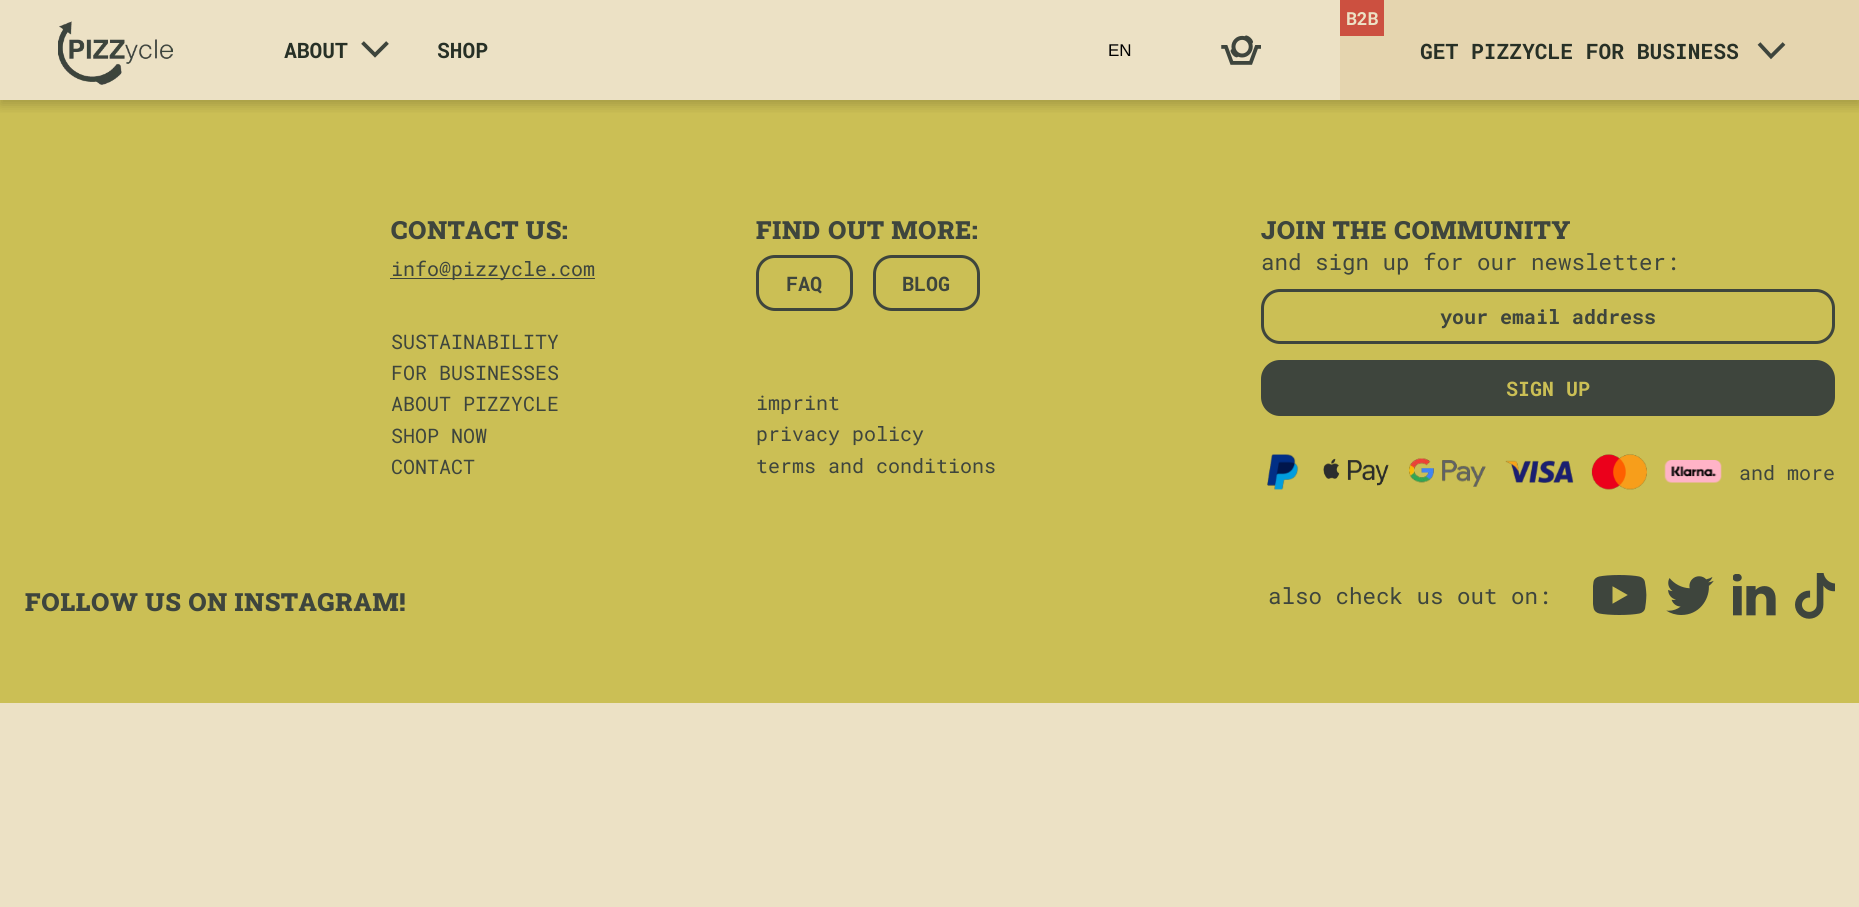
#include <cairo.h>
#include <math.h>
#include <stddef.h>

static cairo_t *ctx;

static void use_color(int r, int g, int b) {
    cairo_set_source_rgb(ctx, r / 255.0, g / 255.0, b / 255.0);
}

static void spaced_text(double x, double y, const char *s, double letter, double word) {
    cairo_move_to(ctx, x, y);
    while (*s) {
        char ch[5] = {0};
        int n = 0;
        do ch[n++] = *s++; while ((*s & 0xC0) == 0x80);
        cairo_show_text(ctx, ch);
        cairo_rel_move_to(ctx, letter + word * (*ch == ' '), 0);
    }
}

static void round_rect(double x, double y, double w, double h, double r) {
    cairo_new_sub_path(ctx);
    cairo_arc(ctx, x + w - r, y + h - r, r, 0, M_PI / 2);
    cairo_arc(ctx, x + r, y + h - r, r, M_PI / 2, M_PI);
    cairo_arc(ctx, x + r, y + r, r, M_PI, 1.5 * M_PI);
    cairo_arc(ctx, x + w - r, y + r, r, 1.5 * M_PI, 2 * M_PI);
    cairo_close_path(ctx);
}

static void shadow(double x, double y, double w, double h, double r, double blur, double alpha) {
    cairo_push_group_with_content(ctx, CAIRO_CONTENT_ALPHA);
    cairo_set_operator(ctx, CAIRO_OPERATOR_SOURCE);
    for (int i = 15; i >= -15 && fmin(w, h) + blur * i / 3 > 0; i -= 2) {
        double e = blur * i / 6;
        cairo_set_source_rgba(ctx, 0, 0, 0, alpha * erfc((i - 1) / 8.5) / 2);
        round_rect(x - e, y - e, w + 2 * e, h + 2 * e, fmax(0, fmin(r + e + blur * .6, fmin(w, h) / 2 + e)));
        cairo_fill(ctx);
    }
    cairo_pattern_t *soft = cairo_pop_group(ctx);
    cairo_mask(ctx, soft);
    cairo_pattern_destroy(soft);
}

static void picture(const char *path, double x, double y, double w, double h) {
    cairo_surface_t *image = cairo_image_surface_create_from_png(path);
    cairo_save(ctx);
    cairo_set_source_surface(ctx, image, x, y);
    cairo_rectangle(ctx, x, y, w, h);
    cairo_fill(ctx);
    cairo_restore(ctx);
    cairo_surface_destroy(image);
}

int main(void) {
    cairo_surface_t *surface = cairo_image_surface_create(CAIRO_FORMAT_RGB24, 1859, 907);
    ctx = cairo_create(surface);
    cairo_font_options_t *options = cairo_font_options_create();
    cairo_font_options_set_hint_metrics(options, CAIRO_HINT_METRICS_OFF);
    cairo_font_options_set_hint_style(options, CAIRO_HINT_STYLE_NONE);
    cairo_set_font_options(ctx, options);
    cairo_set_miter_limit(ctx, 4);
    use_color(236, 225, 197);
    cairo_paint(ctx);
    use_color(203, 191, 85);
    cairo_rectangle(ctx, 0, 100, 1859, 603);
    cairo_fill(ctx);
    cairo_save(ctx);
    cairo_rectangle(ctx, 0, 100, 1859, 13);
    cairo_clip(ctx);
    use_color(0, 0, 0);
    shadow(0, 5, 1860, 100, 0, 6, 0.2);
    cairo_restore(ctx);
    picture("img1.png", 58, 21, 115, 64);
    cairo_select_font_face(ctx, "Roboto Mono", CAIRO_FONT_SLANT_NORMAL, CAIRO_FONT_WEIGHT_BOLD);
    cairo_set_font_size(ctx, 21.25);
    use_color(39, 48, 38);
    cairo_move_to(ctx, 284, 58);
    cairo_show_text(ctx, "ABOUT");
    cairo_new_path(ctx);
    cairo_move_to(ctx, 387.5, 42.5);
    cairo_line_to(ctx, 375, 55);
    cairo_line_to(ctx, 362.5, 42.5);
    use_color(62, 69, 61);
    cairo_set_line_width(ctx, 3.8);
    cairo_stroke(ctx);
    use_color(39, 48, 38);
    cairo_move_to(ctx, 437, 58);
    cairo_show_text(ctx, "SHOP");
    cairo_select_font_face(ctx, "Liberation Sans", CAIRO_FONT_SLANT_NORMAL, CAIRO_FONT_WEIGHT_NORMAL);
    cairo_set_font_size(ctx, 17);
    use_color(0, 0, 0);
    cairo_move_to(ctx, 1108, 56);
    cairo_show_text(ctx, "EN");
    picture("img2.png", 1221, 35, 40, 30);
    use_color(229, 213, 175);
    cairo_rectangle(ctx, 1340, 0, 519, 100);
    cairo_fill(ctx);
    use_color(204, 80, 64);
    cairo_rectangle(ctx, 1340, 0, 44, 36);
    cairo_fill(ctx);
    cairo_select_font_face(ctx, "Roboto Mono", CAIRO_FONT_SLANT_NORMAL, CAIRO_FONT_WEIGHT_BOLD);
    cairo_set_font_size(ctx, 18);
    use_color(236, 225, 197);
    cairo_move_to(ctx, 1346, 25);
    cairo_show_text(ctx, "B2B");
    cairo_set_font_size(ctx, 21.25);
    use_color(39, 48, 38);
    cairo_move_to(ctx, 1420, 59);
    cairo_show_text(ctx, "GET PIZZYCLE FOR BUSINESS");
    cairo_new_path(ctx);
    cairo_move_to(ctx, 1784, 43.5);
    cairo_line_to(ctx, 1771, 56.5);
    cairo_line_to(ctx, 1759, 43.5);
    use_color(62, 69, 61);
    cairo_stroke(ctx);
    cairo_select_font_face(ctx, "Roboto Slab Black", CAIRO_FONT_SLANT_NORMAL, CAIRO_FONT_WEIGHT_NORMAL);
    cairo_set_font_size(ctx, 25);
    spaced_text(391, 239, "CONTACT US:", 0.75, 0);
    cairo_rectangle(ctx, 390, 278, 205, 1);
    cairo_fill(ctx);
    cairo_select_font_face(ctx, "Roboto Mono", CAIRO_FONT_SLANT_NORMAL, CAIRO_FONT_WEIGHT_NORMAL);
    cairo_set_font_size(ctx, 20);
    cairo_move_to(ctx, 391, 276);
    cairo_show_text(ctx, "info@pizzycle.com");
    cairo_move_to(ctx, 391, 349);
    cairo_show_text(ctx, "SUSTAINABILITY");
    cairo_move_to(ctx, 391, 380);
    cairo_show_text(ctx, "FOR BUSINESSES");
    cairo_move_to(ctx, 391, 411);
    cairo_show_text(ctx, "ABOUT PIZZYCLE");
    cairo_move_to(ctx, 391, 443);
    cairo_show_text(ctx, "SHOP NOW");
    cairo_move_to(ctx, 391, 474);
    cairo_show_text(ctx, "CONTACT");
    cairo_select_font_face(ctx, "Roboto Slab Black", CAIRO_FONT_SLANT_NORMAL, CAIRO_FONT_WEIGHT_NORMAL);
    cairo_set_font_size(ctx, 25);
    spaced_text(756, 239, "FIND OUT MORE:", 0.75, 0);
    round_rect(757.5, 256.5, 94, 53, 17.5);
    cairo_set_line_width(ctx, 3);
    cairo_stroke(ctx);
    cairo_select_font_face(ctx, "Roboto Mono", CAIRO_FONT_SLANT_NORMAL, CAIRO_FONT_WEIGHT_BOLD);
    cairo_set_font_size(ctx, 20);
    cairo_move_to(ctx, 786, 291);
    cairo_show_text(ctx, "FAQ");
    round_rect(874.5, 256.5, 104, 53, 17.5);
    cairo_stroke(ctx);
    cairo_move_to(ctx, 902, 291);
    cairo_show_text(ctx, "BLOG");
    cairo_select_font_face(ctx, "Roboto Mono", CAIRO_FONT_SLANT_NORMAL, CAIRO_FONT_WEIGHT_NORMAL);
    cairo_move_to(ctx, 756, 410);
    cairo_show_text(ctx, "imprint");
    cairo_move_to(ctx, 756, 441);
    cairo_show_text(ctx, "privacy policy");
    cairo_move_to(ctx, 756, 473);
    cairo_show_text(ctx, "terms and conditions");
    cairo_select_font_face(ctx, "Roboto Slab Black", CAIRO_FONT_SLANT_NORMAL, CAIRO_FONT_WEIGHT_NORMAL);
    cairo_set_font_size(ctx, 25);
    spaced_text(1261, 239, "JOIN THE COMMUNITY", 0.75, 0);
    cairo_select_font_face(ctx, "Roboto Mono", CAIRO_FONT_SLANT_NORMAL, CAIRO_FONT_WEIGHT_NORMAL);
    cairo_set_font_size(ctx, 22.5);
    cairo_move_to(ctx, 1261, 270);
    cairo_show_text(ctx, "and sign up for our newsletter:");
    round_rect(1262.5, 290.5, 571, 52, 17.5);
    cairo_stroke(ctx);
    cairo_select_font_face(ctx, "Roboto Mono", CAIRO_FONT_SLANT_NORMAL, CAIRO_FONT_WEIGHT_BOLD);
    cairo_set_font_size(ctx, 20);
    cairo_move_to(ctx, 1440, 324);
    cairo_show_text(ctx, "your email address");
    round_rect(1262.5, 361.5, 571, 53, 17.5);
    cairo_fill_preserve(ctx);
    cairo_stroke(ctx);
    use_color(203, 191, 85);
    cairo_move_to(ctx, 1506, 396);
    cairo_show_text(ctx, "SIGN UP");
    picture("img3.png", 1267, 454, 32, 36);
    picture("img4.png", 1323, 458, 66, 28);
    picture("img5.png", 1409, 458, 77, 29);
    picture("img6.png", 1505, 460, 69, 23);
    picture("img7.png", 1591, 454, 56, 36);
    picture("img8.png", 1664, 460, 58, 23);
    cairo_select_font_face(ctx, "Roboto Mono", CAIRO_FONT_SLANT_NORMAL, CAIRO_FONT_WEIGHT_NORMAL);
    use_color(62, 69, 61);
    cairo_move_to(ctx, 1739, 480);
    cairo_show_text(ctx, "and more");
    cairo_select_font_face(ctx, "Roboto Slab Black", CAIRO_FONT_SLANT_NORMAL, CAIRO_FONT_WEIGHT_NORMAL);
    cairo_set_font_size(ctx, 25);
    spaced_text(25, 611, "FOLLOW US ON INSTAGRAM!", 0.75, 0);
    cairo_select_font_face(ctx, "Roboto Mono", CAIRO_FONT_SLANT_NORMAL, CAIRO_FONT_WEIGHT_NORMAL);
    cairo_set_font_size(ctx, 22.5);
    cairo_move_to(ctx, 1268, 604);
    cairo_show_text(ctx, "also check us out on:");
    picture("img9.png", 1593, 575, 54, 40);
    picture("img10.png", 1666, 576, 48, 39);
    picture("img11.png", 1733, 574, 43, 42);
    picture("img12.png", 1795, 573, 40, 46);
    cairo_surface_write_to_png(surface, "result.png");
    cairo_font_options_destroy(options);
    cairo_destroy(ctx);
    cairo_surface_destroy(surface);
    return 0;
}
